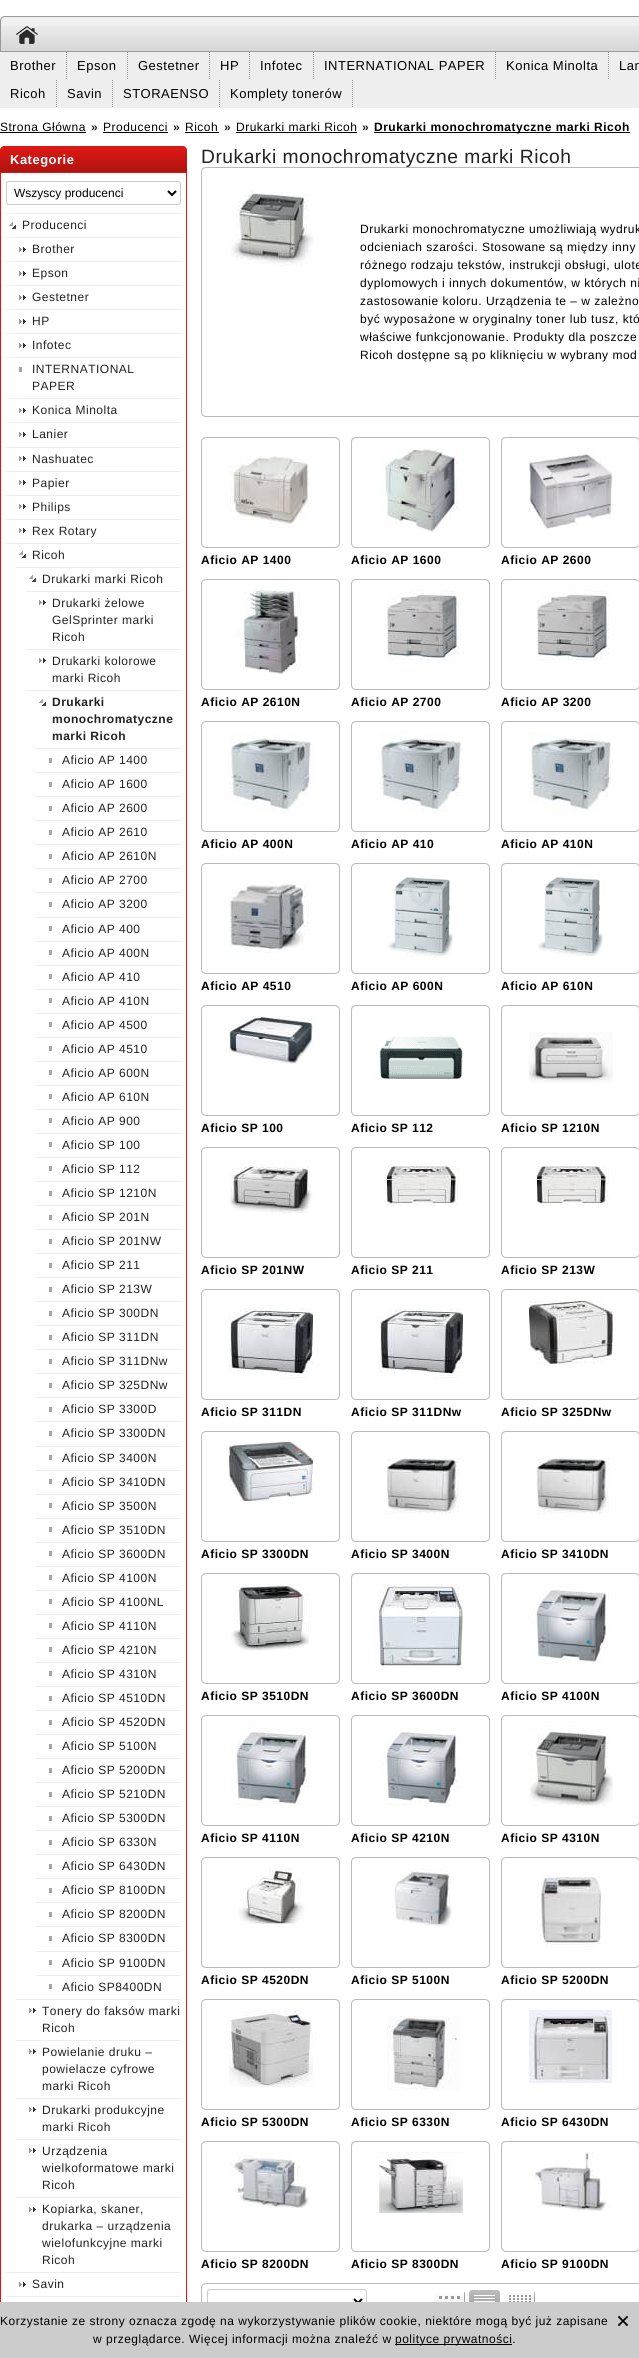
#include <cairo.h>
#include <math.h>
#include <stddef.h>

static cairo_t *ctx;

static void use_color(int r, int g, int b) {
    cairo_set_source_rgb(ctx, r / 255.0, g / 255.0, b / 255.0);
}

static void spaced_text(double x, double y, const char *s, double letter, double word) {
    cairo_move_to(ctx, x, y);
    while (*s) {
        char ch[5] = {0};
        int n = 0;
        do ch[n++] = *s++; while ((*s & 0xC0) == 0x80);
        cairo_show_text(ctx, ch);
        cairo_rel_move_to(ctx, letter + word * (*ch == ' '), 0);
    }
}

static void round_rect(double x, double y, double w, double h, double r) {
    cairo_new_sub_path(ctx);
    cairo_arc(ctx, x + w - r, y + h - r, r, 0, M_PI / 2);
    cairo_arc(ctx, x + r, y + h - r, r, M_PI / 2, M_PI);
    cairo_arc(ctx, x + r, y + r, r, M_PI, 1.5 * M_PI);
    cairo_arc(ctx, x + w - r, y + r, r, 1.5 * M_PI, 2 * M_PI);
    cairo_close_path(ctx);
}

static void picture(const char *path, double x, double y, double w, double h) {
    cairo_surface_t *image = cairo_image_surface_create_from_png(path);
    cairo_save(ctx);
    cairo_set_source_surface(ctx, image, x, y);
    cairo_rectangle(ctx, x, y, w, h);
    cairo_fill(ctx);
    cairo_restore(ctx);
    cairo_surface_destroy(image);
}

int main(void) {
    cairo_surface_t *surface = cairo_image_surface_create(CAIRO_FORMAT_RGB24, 639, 2358);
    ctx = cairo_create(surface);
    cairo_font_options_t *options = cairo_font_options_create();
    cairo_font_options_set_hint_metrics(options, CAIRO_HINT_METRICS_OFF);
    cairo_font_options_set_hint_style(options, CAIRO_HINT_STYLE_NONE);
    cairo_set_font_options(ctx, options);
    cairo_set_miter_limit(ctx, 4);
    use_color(255, 255, 255);
    cairo_paint(ctx);
    use_color(240, 240, 240);
    cairo_new_path(ctx);
    cairo_move_to(ctx, 5, 16);
    cairo_line_to(ctx, 639, 16);
    cairo_curve_to(ctx, 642, 16, 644, 18, 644, 21);
    cairo_line_to(ctx, 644, 52);
    cairo_line_to(ctx, 0, 52);
    cairo_line_to(ctx, 0, 21);
    cairo_curve_to(ctx, 0, 18, 2, 16, 5, 16);
    cairo_close_path(ctx);
    cairo_fill(ctx);
    picture("img1.png", 1, 26, 638, 25);
    cairo_new_path(ctx);
    cairo_move_to(ctx, 5, 16.5);
    cairo_line_to(ctx, 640, 16.5);
    cairo_curve_to(ctx, 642.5, 16.5, 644.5, 18.5, 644.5, 21);
    cairo_line_to(ctx, 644.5, 51.5);
    cairo_line_to(ctx, 0.5, 51.5);
    cairo_line_to(ctx, 0.5, 21);
    cairo_curve_to(ctx, 0.5, 18.5, 2.5, 16.5, 5, 16.5);
    cairo_close_path(ctx);
    use_color(153, 153, 153);
    cairo_set_line_width(ctx, 1);
    cairo_stroke(ctx);
    picture("img2.png", 16, 26, 22, 18);
    use_color(238, 238, 238);
    cairo_rectangle(ctx, 0, 52, 639, 56);
    cairo_fill(ctx);
    cairo_new_path(ctx);
    cairo_move_to(ctx, 66.5, 52);
    cairo_line_to(ctx, 66.5, 80);
    use_color(153, 153, 153);
    cairo_set_dash(ctx, (double[]){1, 1}, 2, 0);
    cairo_stroke(ctx);
    cairo_select_font_face(ctx, "Liberation Sans", CAIRO_FONT_SLANT_NORMAL, CAIRO_FONT_WEIGHT_NORMAL);
    cairo_set_font_size(ctx, 13);
    use_color(0, 0, 0);
    spaced_text(10, 70, "Brother", 0.5, 0);
    cairo_new_path(ctx);
    cairo_move_to(ctx, 127.5, 52);
    cairo_line_to(ctx, 127.5, 80);
    use_color(153, 153, 153);
    cairo_stroke(ctx);
    use_color(0, 0, 0);
    spaced_text(77, 70, "Epson", 0.5, 0);
    cairo_new_path(ctx);
    cairo_move_to(ctx, 209.5, 52);
    cairo_line_to(ctx, 209.5, 80);
    use_color(153, 153, 153);
    cairo_stroke(ctx);
    use_color(0, 0, 0);
    spaced_text(138, 70, "Gestetner", 0.5, 0);
    cairo_new_path(ctx);
    cairo_move_to(ctx, 249.5, 52);
    cairo_line_to(ctx, 249.5, 80);
    use_color(153, 153, 153);
    cairo_stroke(ctx);
    use_color(0, 0, 0);
    spaced_text(220, 70, "HP", 0.5, 0);
    cairo_new_path(ctx);
    cairo_move_to(ctx, 313.5, 52);
    cairo_line_to(ctx, 313.5, 80);
    use_color(153, 153, 153);
    cairo_stroke(ctx);
    use_color(0, 0, 0);
    spaced_text(260, 70, "Infotec", 0.5, 0);
    cairo_new_path(ctx);
    cairo_move_to(ctx, 495.5, 52);
    cairo_line_to(ctx, 495.5, 80);
    use_color(153, 153, 153);
    cairo_stroke(ctx);
    use_color(0, 0, 0);
    spaced_text(324, 70, "INTERNATIONAL PAPER", 0.5, 0);
    cairo_new_path(ctx);
    cairo_move_to(ctx, 608.5, 52);
    cairo_line_to(ctx, 608.5, 80);
    use_color(153, 153, 153);
    cairo_stroke(ctx);
    use_color(0, 0, 0);
    spaced_text(506, 70, "Konica Minolta", 0.5, 0);
    spaced_text(619, 70, "Lan", 0.5, 0);
    cairo_new_path(ctx);
    cairo_move_to(ctx, 56.5, 80);
    cairo_line_to(ctx, 56.5, 108);
    use_color(153, 153, 153);
    cairo_stroke(ctx);
    use_color(0, 0, 0);
    spaced_text(10, 98, "Ricoh", 0.5, 0);
    cairo_new_path(ctx);
    cairo_move_to(ctx, 112.5, 80);
    cairo_line_to(ctx, 112.5, 108);
    use_color(153, 153, 153);
    cairo_stroke(ctx);
    use_color(0, 0, 0);
    spaced_text(67, 98, "Savin", 0.5, 0);
    cairo_new_path(ctx);
    cairo_move_to(ctx, 219.5, 80);
    cairo_line_to(ctx, 219.5, 108);
    use_color(153, 153, 153);
    cairo_stroke(ctx);
    use_color(0, 0, 0);
    spaced_text(123, 98, "STORAENSO", 0.5, 0);
    cairo_new_path(ctx);
    cairo_move_to(ctx, 352.5, 80);
    cairo_line_to(ctx, 352.5, 108);
    use_color(153, 153, 153);
    cairo_stroke(ctx);
    use_color(0, 0, 0);
    spaced_text(230, 98, "Komplety tonerów", 0.5, 0);
    cairo_set_font_size(ctx, 12);
    spaced_text(0, 131, "Strona Główna", 0.5, 0);
    cairo_rectangle(ctx, 0, 132, 86, 1);
    cairo_fill(ctx);
    cairo_select_font_face(ctx, "Liberation Sans", CAIRO_FONT_SLANT_NORMAL, CAIRO_FONT_WEIGHT_BOLD);
    use_color(34, 34, 34);
    spaced_text(91, 131, "»", 0.5, 0);
    cairo_select_font_face(ctx, "Liberation Sans", CAIRO_FONT_SLANT_NORMAL, CAIRO_FONT_WEIGHT_NORMAL);
    use_color(0, 0, 0);
    spaced_text(103, 131, "Producenci", 0.5, 0);
    cairo_rectangle(ctx, 103, 132, 65, 1);
    cairo_fill(ctx);
    cairo_select_font_face(ctx, "Liberation Sans", CAIRO_FONT_SLANT_NORMAL, CAIRO_FONT_WEIGHT_BOLD);
    use_color(34, 34, 34);
    spaced_text(173, 131, "»", 0.5, 0);
    cairo_select_font_face(ctx, "Liberation Sans", CAIRO_FONT_SLANT_NORMAL, CAIRO_FONT_WEIGHT_NORMAL);
    use_color(0, 0, 0);
    spaced_text(185, 131, "Ricoh", 0.5, 0);
    cairo_rectangle(ctx, 185, 132, 34, 1);
    cairo_fill(ctx);
    cairo_select_font_face(ctx, "Liberation Sans", CAIRO_FONT_SLANT_NORMAL, CAIRO_FONT_WEIGHT_BOLD);
    use_color(34, 34, 34);
    spaced_text(224, 131, "»", 0.5, 0);
    cairo_select_font_face(ctx, "Liberation Sans", CAIRO_FONT_SLANT_NORMAL, CAIRO_FONT_WEIGHT_NORMAL);
    use_color(0, 0, 0);
    spaced_text(236, 131, "Drukarki marki Ricoh", 0.5, 0);
    cairo_rectangle(ctx, 236, 132, 121, 1);
    cairo_fill(ctx);
    cairo_select_font_face(ctx, "Liberation Sans", CAIRO_FONT_SLANT_NORMAL, CAIRO_FONT_WEIGHT_BOLD);
    use_color(34, 34, 34);
    spaced_text(362, 131, "»", 0.5, 0);
    use_color(0, 0, 0);
    cairo_rectangle(ctx, 374, 132, 256, 1);
    cairo_fill(ctx);
    spaced_text(374, 131, "Drukarki monochromatyczne marki Ricoh", 0.5, 0);
    use_color(219, 24, 20);
    cairo_new_path(ctx);
    cairo_move_to(ctx, 4, 146);
    cairo_line_to(ctx, 183, 146);
    cairo_curve_to(ctx, 185, 146, 187, 148, 187, 150);
    cairo_line_to(ctx, 187, 173);
    cairo_line_to(ctx, 0, 173);
    cairo_line_to(ctx, 0, 150);
    cairo_curve_to(ctx, 0, 148, 2, 146, 4, 146);
    cairo_close_path(ctx);
    cairo_fill(ctx);
    picture("img3.png", 0, 151, 187, 21);
    cairo_set_font_size(ctx, 13);
    use_color(255, 255, 255);
    spaced_text(10, 164, "Kategorie", 0.5, 0);
    use_color(240, 14, 14);
    cairo_set_fill_rule(ctx, CAIRO_FILL_RULE_EVEN_ODD);
    cairo_new_path(ctx);
    cairo_move_to(ctx, 0, 173);
    cairo_line_to(ctx, 187, 173);
    cairo_line_to(ctx, 187, 2318);
    cairo_curve_to(ctx, 187, 2321, 185, 2323, 182, 2323);
    cairo_line_to(ctx, 5, 2323);
    cairo_curve_to(ctx, 2, 2323, 0, 2321, 0, 2318);
    cairo_close_path(ctx);
    cairo_move_to(ctx, 1, 173);
    cairo_line_to(ctx, 186, 173);
    cairo_line_to(ctx, 186, 2318);
    cairo_curve_to(ctx, 186, 2320, 184, 2322, 182, 2322);
    cairo_line_to(ctx, 5, 2322);
    cairo_curve_to(ctx, 3, 2322, 1, 2320, 1, 2318);
    cairo_close_path(ctx);
    cairo_fill(ctx);
    round_rect(6.5, 181.5, 174, 23, 2.5);
    use_color(204, 204, 204);
    cairo_set_dash(ctx, NULL, 0, 0);
    cairo_stroke(ctx);
    cairo_new_path(ctx);
    cairo_move_to(ctx, 168, 191);
    cairo_line_to(ctx, 172, 195);
    cairo_line_to(ctx, 176, 191);
    use_color(0, 0, 0);
    cairo_set_line_width(ctx, 2);
    cairo_stroke(ctx);
    cairo_select_font_face(ctx, "Liberation Sans", CAIRO_FONT_SLANT_NORMAL, CAIRO_FONT_WEIGHT_NORMAL);
    cairo_set_font_size(ctx, 12);
    cairo_move_to(ctx, 14, 197);
    cairo_show_text(ctx, "Wszyscy producenci");
    use_color(238, 238, 238);
    cairo_rectangle(ctx, 6, 213, 175, 1);
    cairo_fill(ctx);
    picture("img4.png", 9, 222, 7, 7);
    use_color(34, 34, 34);
    spaced_text(22, 229, "Producenci", 0.5, 0);
    use_color(238, 238, 238);
    cairo_rectangle(ctx, 6, 237, 175, 1);
    cairo_fill(ctx);
    picture("img5.png", 19, 247, 7, 5);
    use_color(34, 34, 34);
    spaced_text(32, 253, "Brother", 0.5, 0);
    use_color(238, 238, 238);
    cairo_rectangle(ctx, 6, 261, 175, 1);
    cairo_fill(ctx);
    picture("img5.png", 19, 271, 7, 5);
    use_color(34, 34, 34);
    spaced_text(32, 277, "Epson", 0.5, 0);
    use_color(238, 238, 238);
    cairo_rectangle(ctx, 6, 285, 175, 1);
    cairo_fill(ctx);
    picture("img5.png", 19, 295, 7, 5);
    use_color(34, 34, 34);
    spaced_text(32, 301, "Gestetner", 0.5, 0);
    use_color(238, 238, 238);
    cairo_rectangle(ctx, 6, 309, 175, 1);
    cairo_fill(ctx);
    picture("img5.png", 19, 319, 7, 5);
    use_color(34, 34, 34);
    spaced_text(32, 325, "HP", 0.5, 0);
    use_color(238, 238, 238);
    cairo_rectangle(ctx, 6, 333, 175, 1);
    cairo_fill(ctx);
    picture("img5.png", 19, 343, 7, 5);
    use_color(34, 34, 34);
    spaced_text(32, 349, "Infotec", 0.5, 0);
    use_color(238, 238, 238);
    cairo_rectangle(ctx, 6, 357, 175, 1);
    cairo_fill(ctx);
    use_color(165, 165, 165);
    cairo_rectangle(ctx, 19, 367, 3, 5);
    cairo_fill(ctx);
    use_color(34, 34, 34);
    spaced_text(32, 373, "INTERNATIONAL", 0.5, 0);
    spaced_text(32, 390, "PAPER", 0.5, 0);
    use_color(238, 238, 238);
    cairo_rectangle(ctx, 6, 398, 175, 1);
    cairo_fill(ctx);
    picture("img5.png", 19, 408, 7, 5);
    use_color(34, 34, 34);
    spaced_text(32, 414, "Konica Minolta", 0.5, 0);
    use_color(238, 238, 238);
    cairo_rectangle(ctx, 6, 422, 175, 1);
    cairo_fill(ctx);
    picture("img5.png", 19, 432, 7, 5);
    use_color(34, 34, 34);
    spaced_text(32, 438, "Lanier", 0.5, 0);
    use_color(238, 238, 238);
    cairo_rectangle(ctx, 6, 447, 175, 1);
    cairo_fill(ctx);
    picture("img5.png", 19, 456, 7, 5);
    use_color(34, 34, 34);
    spaced_text(32, 463, "Nashuatec", 0.5, 0);
    use_color(238, 238, 238);
    cairo_rectangle(ctx, 6, 471, 175, 1);
    cairo_fill(ctx);
    picture("img5.png", 19, 480, 7, 5);
    use_color(34, 34, 34);
    spaced_text(32, 487, "Papier", 0.5, 0);
    use_color(238, 238, 238);
    cairo_rectangle(ctx, 6, 495, 175, 1);
    cairo_fill(ctx);
    picture("img5.png", 19, 504, 7, 5);
    use_color(34, 34, 34);
    spaced_text(32, 511, "Philips", 0.5, 0);
    use_color(238, 238, 238);
    cairo_rectangle(ctx, 6, 519, 175, 1);
    cairo_fill(ctx);
    picture("img5.png", 19, 528, 7, 5);
    use_color(34, 34, 34);
    spaced_text(32, 535, "Rex Rotary", 0.5, 0);
    use_color(238, 238, 238);
    cairo_rectangle(ctx, 6, 543, 175, 1);
    cairo_fill(ctx);
    picture("img4.png", 19, 551, 7, 7);
    use_color(34, 34, 34);
    spaced_text(32, 559, "Ricoh", 0.5, 0);
    use_color(238, 238, 238);
    cairo_rectangle(ctx, 16, 567, 165, 1);
    cairo_fill(ctx);
    picture("img4.png", 29, 575, 7, 7);
    use_color(34, 34, 34);
    spaced_text(42, 583, "Drukarki marki Ricoh", 0.5, 0);
    use_color(238, 238, 238);
    cairo_rectangle(ctx, 26, 591, 155, 1);
    cairo_fill(ctx);
    picture("img5.png", 39, 600, 7, 5);
    use_color(34, 34, 34);
    spaced_text(52, 607, "Drukarki żelowe", 0.5, 0);
    spaced_text(52, 624, "GelSprinter marki", 0.5, 0);
    spaced_text(52, 641, "Ricoh", 0.5, 0);
    use_color(238, 238, 238);
    cairo_rectangle(ctx, 26, 649, 155, 1);
    cairo_fill(ctx);
    picture("img5.png", 39, 658, 7, 5);
    use_color(34, 34, 34);
    spaced_text(52, 665, "Drukarki kolorowe", 0.5, 0);
    spaced_text(52, 682, "marki Ricoh", 0.5, 0);
    use_color(238, 238, 238);
    cairo_rectangle(ctx, 26, 690, 155, 1);
    cairo_fill(ctx);
    picture("img4.png", 39, 699, 7, 7);
    cairo_select_font_face(ctx, "Liberation Sans", CAIRO_FONT_SLANT_NORMAL, CAIRO_FONT_WEIGHT_BOLD);
    use_color(34, 34, 34);
    spaced_text(52, 706, "Drukarki", 0.5, 0);
    spaced_text(52, 723, "monochromatyczne", 0.5, 0);
    spaced_text(52, 740, "marki Ricoh", 0.5, 0);
    use_color(238, 238, 238);
    cairo_rectangle(ctx, 36, 748, 145, 1);
    cairo_fill(ctx);
    use_color(165, 165, 165);
    cairo_rectangle(ctx, 49, 758, 3, 5);
    cairo_fill(ctx);
    cairo_select_font_face(ctx, "Liberation Sans", CAIRO_FONT_SLANT_NORMAL, CAIRO_FONT_WEIGHT_NORMAL);
    use_color(34, 34, 34);
    spaced_text(62, 764, "Aficio AP 1400", 0.5, 0);
    use_color(238, 238, 238);
    cairo_rectangle(ctx, 36, 772, 145, 1);
    cairo_fill(ctx);
    use_color(165, 165, 165);
    cairo_rectangle(ctx, 49, 782, 3, 5);
    cairo_fill(ctx);
    use_color(34, 34, 34);
    spaced_text(62, 788, "Aficio AP 1600", 0.5, 0);
    use_color(238, 238, 238);
    cairo_rectangle(ctx, 36, 796, 145, 1);
    cairo_fill(ctx);
    use_color(165, 165, 165);
    cairo_rectangle(ctx, 49, 806, 3, 5);
    cairo_fill(ctx);
    use_color(34, 34, 34);
    spaced_text(62, 812, "Aficio AP 2600", 0.5, 0);
    use_color(238, 238, 238);
    cairo_rectangle(ctx, 36, 820, 145, 1);
    cairo_fill(ctx);
    use_color(165, 165, 165);
    cairo_rectangle(ctx, 49, 830, 3, 5);
    cairo_fill(ctx);
    use_color(34, 34, 34);
    spaced_text(62, 836, "Aficio AP 2610", 0.5, 0);
    use_color(238, 238, 238);
    cairo_rectangle(ctx, 36, 844, 145, 1);
    cairo_fill(ctx);
    use_color(165, 165, 165);
    cairo_rectangle(ctx, 49, 854, 3, 5);
    cairo_fill(ctx);
    use_color(34, 34, 34);
    spaced_text(62, 860, "Aficio AP 2610N", 0.5, 0);
    use_color(238, 238, 238);
    cairo_rectangle(ctx, 36, 868, 145, 1);
    cairo_fill(ctx);
    use_color(165, 165, 165);
    cairo_rectangle(ctx, 49, 878, 3, 5);
    cairo_fill(ctx);
    use_color(34, 34, 34);
    spaced_text(62, 884, "Aficio AP 2700", 0.5, 0);
    use_color(238, 238, 238);
    cairo_rectangle(ctx, 36, 892, 145, 1);
    cairo_fill(ctx);
    use_color(165, 165, 165);
    cairo_rectangle(ctx, 49, 902, 3, 5);
    cairo_fill(ctx);
    use_color(34, 34, 34);
    spaced_text(62, 908, "Aficio AP 3200", 0.5, 0);
    use_color(238, 238, 238);
    cairo_rectangle(ctx, 36, 917, 145, 1);
    cairo_fill(ctx);
    use_color(165, 165, 165);
    cairo_rectangle(ctx, 49, 926, 3, 5);
    cairo_fill(ctx);
    use_color(34, 34, 34);
    spaced_text(62, 933, "Aficio AP 400", 0.5, 0);
    use_color(238, 238, 238);
    cairo_rectangle(ctx, 36, 941, 145, 1);
    cairo_fill(ctx);
    use_color(165, 165, 165);
    cairo_rectangle(ctx, 49, 950, 3, 5);
    cairo_fill(ctx);
    use_color(34, 34, 34);
    spaced_text(62, 957, "Aficio AP 400N", 0.5, 0);
    use_color(238, 238, 238);
    cairo_rectangle(ctx, 36, 965, 145, 1);
    cairo_fill(ctx);
    use_color(165, 165, 165);
    cairo_rectangle(ctx, 49, 974, 3, 5);
    cairo_fill(ctx);
    use_color(34, 34, 34);
    spaced_text(62, 981, "Aficio AP 410", 0.5, 0);
    use_color(238, 238, 238);
    cairo_rectangle(ctx, 36, 989, 145, 1);
    cairo_fill(ctx);
    use_color(165, 165, 165);
    cairo_rectangle(ctx, 49, 998, 3, 5);
    cairo_fill(ctx);
    use_color(34, 34, 34);
    spaced_text(62, 1005, "Aficio AP 410N", 0.5, 0);
    use_color(238, 238, 238);
    cairo_rectangle(ctx, 36, 1013, 145, 1);
    cairo_fill(ctx);
    use_color(165, 165, 165);
    cairo_rectangle(ctx, 49, 1022, 3, 5);
    cairo_fill(ctx);
    use_color(34, 34, 34);
    spaced_text(62, 1029, "Aficio AP 4500", 0.5, 0);
    use_color(238, 238, 238);
    cairo_rectangle(ctx, 36, 1037, 145, 1);
    cairo_fill(ctx);
    use_color(165, 165, 165);
    cairo_rectangle(ctx, 49, 1046, 3, 5);
    cairo_fill(ctx);
    use_color(34, 34, 34);
    spaced_text(62, 1053, "Aficio AP 4510", 0.5, 0);
    use_color(238, 238, 238);
    cairo_rectangle(ctx, 36, 1061, 145, 1);
    cairo_fill(ctx);
    use_color(165, 165, 165);
    cairo_rectangle(ctx, 49, 1070, 3, 5);
    cairo_fill(ctx);
    use_color(34, 34, 34);
    spaced_text(62, 1077, "Aficio AP 600N", 0.5, 0);
    use_color(238, 238, 238);
    cairo_rectangle(ctx, 36, 1085, 145, 1);
    cairo_fill(ctx);
    use_color(165, 165, 165);
    cairo_rectangle(ctx, 49, 1094, 3, 5);
    cairo_fill(ctx);
    use_color(34, 34, 34);
    spaced_text(62, 1101, "Aficio AP 610N", 0.5, 0);
    use_color(238, 238, 238);
    cairo_rectangle(ctx, 36, 1109, 145, 1);
    cairo_fill(ctx);
    use_color(165, 165, 165);
    cairo_rectangle(ctx, 49, 1118, 3, 5);
    cairo_fill(ctx);
    use_color(34, 34, 34);
    spaced_text(62, 1125, "Aficio AP 900", 0.5, 0);
    use_color(238, 238, 238);
    cairo_rectangle(ctx, 36, 1133, 145, 1);
    cairo_fill(ctx);
    use_color(165, 165, 165);
    cairo_rectangle(ctx, 49, 1142, 3, 5);
    cairo_fill(ctx);
    use_color(34, 34, 34);
    spaced_text(62, 1149, "Aficio SP 100", 0.5, 0);
    use_color(238, 238, 238);
    cairo_rectangle(ctx, 36, 1157, 145, 1);
    cairo_fill(ctx);
    use_color(165, 165, 165);
    cairo_rectangle(ctx, 49, 1166, 3, 5);
    cairo_fill(ctx);
    use_color(34, 34, 34);
    spaced_text(62, 1173, "Aficio SP 112", 0.5, 0);
    use_color(238, 238, 238);
    cairo_rectangle(ctx, 36, 1181, 145, 1);
    cairo_fill(ctx);
    use_color(165, 165, 165);
    cairo_rectangle(ctx, 49, 1191, 3, 5);
    cairo_fill(ctx);
    use_color(34, 34, 34);
    spaced_text(62, 1197, "Aficio SP 1210N", 0.5, 0);
    use_color(238, 238, 238);
    cairo_rectangle(ctx, 36, 1205, 145, 1);
    cairo_fill(ctx);
    use_color(165, 165, 165);
    cairo_rectangle(ctx, 49, 1215, 3, 5);
    cairo_fill(ctx);
    use_color(34, 34, 34);
    spaced_text(62, 1221, "Aficio SP 201N", 0.5, 0);
    use_color(238, 238, 238);
    cairo_rectangle(ctx, 36, 1229, 145, 1);
    cairo_fill(ctx);
    use_color(165, 165, 165);
    cairo_rectangle(ctx, 49, 1239, 3, 5);
    cairo_fill(ctx);
    use_color(34, 34, 34);
    spaced_text(62, 1245, "Aficio SP 201NW", 0.5, 0);
    use_color(238, 238, 238);
    cairo_rectangle(ctx, 36, 1253, 145, 1);
    cairo_fill(ctx);
    use_color(165, 165, 165);
    cairo_rectangle(ctx, 49, 1263, 3, 5);
    cairo_fill(ctx);
    use_color(34, 34, 34);
    spaced_text(62, 1269, "Aficio SP 211", 0.5, 0);
    use_color(238, 238, 238);
    cairo_rectangle(ctx, 36, 1277, 145, 1);
    cairo_fill(ctx);
    use_color(165, 165, 165);
    cairo_rectangle(ctx, 49, 1287, 3, 5);
    cairo_fill(ctx);
    use_color(34, 34, 34);
    spaced_text(62, 1293, "Aficio SP 213W", 0.5, 0);
    use_color(238, 238, 238);
    cairo_rectangle(ctx, 36, 1301, 145, 1);
    cairo_fill(ctx);
    use_color(165, 165, 165);
    cairo_rectangle(ctx, 49, 1311, 3, 5);
    cairo_fill(ctx);
    use_color(34, 34, 34);
    spaced_text(62, 1317, "Aficio SP 300DN", 0.5, 0);
    use_color(238, 238, 238);
    cairo_rectangle(ctx, 36, 1325, 145, 1);
    cairo_fill(ctx);
    use_color(165, 165, 165);
    cairo_rectangle(ctx, 49, 1335, 3, 5);
    cairo_fill(ctx);
    use_color(34, 34, 34);
    spaced_text(62, 1341, "Aficio SP 311DN", 0.5, 0);
    use_color(238, 238, 238);
    cairo_rectangle(ctx, 36, 1349, 145, 1);
    cairo_fill(ctx);
    use_color(165, 165, 165);
    cairo_rectangle(ctx, 49, 1359, 3, 5);
    cairo_fill(ctx);
    use_color(34, 34, 34);
    spaced_text(62, 1365, "Aficio SP 311DNw", 0.5, 0);
    use_color(238, 238, 238);
    cairo_rectangle(ctx, 36, 1373, 145, 1);
    cairo_fill(ctx);
    use_color(165, 165, 165);
    cairo_rectangle(ctx, 49, 1383, 3, 5);
    cairo_fill(ctx);
    use_color(34, 34, 34);
    spaced_text(62, 1389, "Aficio SP 325DNw", 0.5, 0);
    use_color(238, 238, 238);
    cairo_rectangle(ctx, 36, 1397, 145, 1);
    cairo_fill(ctx);
    use_color(165, 165, 165);
    cairo_rectangle(ctx, 49, 1407, 3, 5);
    cairo_fill(ctx);
    use_color(34, 34, 34);
    spaced_text(62, 1413, "Aficio SP 3300D", 0.5, 0);
    use_color(238, 238, 238);
    cairo_rectangle(ctx, 36, 1421, 145, 1);
    cairo_fill(ctx);
    use_color(165, 165, 165);
    cairo_rectangle(ctx, 49, 1431, 3, 5);
    cairo_fill(ctx);
    use_color(34, 34, 34);
    spaced_text(62, 1437, "Aficio SP 3300DN", 0.5, 0);
    use_color(238, 238, 238);
    cairo_rectangle(ctx, 36, 1446, 145, 1);
    cairo_fill(ctx);
    use_color(165, 165, 165);
    cairo_rectangle(ctx, 49, 1455, 3, 5);
    cairo_fill(ctx);
    use_color(34, 34, 34);
    spaced_text(62, 1462, "Aficio SP 3400N", 0.5, 0);
    use_color(238, 238, 238);
    cairo_rectangle(ctx, 36, 1470, 145, 1);
    cairo_fill(ctx);
    use_color(165, 165, 165);
    cairo_rectangle(ctx, 49, 1479, 3, 5);
    cairo_fill(ctx);
    use_color(34, 34, 34);
    spaced_text(62, 1486, "Aficio SP 3410DN", 0.5, 0);
    use_color(238, 238, 238);
    cairo_rectangle(ctx, 36, 1494, 145, 1);
    cairo_fill(ctx);
    use_color(165, 165, 165);
    cairo_rectangle(ctx, 49, 1503, 3, 5);
    cairo_fill(ctx);
    use_color(34, 34, 34);
    spaced_text(62, 1510, "Aficio SP 3500N", 0.5, 0);
    use_color(238, 238, 238);
    cairo_rectangle(ctx, 36, 1518, 145, 1);
    cairo_fill(ctx);
    use_color(165, 165, 165);
    cairo_rectangle(ctx, 49, 1527, 3, 5);
    cairo_fill(ctx);
    use_color(34, 34, 34);
    spaced_text(62, 1534, "Aficio SP 3510DN", 0.5, 0);
    use_color(238, 238, 238);
    cairo_rectangle(ctx, 36, 1542, 145, 1);
    cairo_fill(ctx);
    use_color(165, 165, 165);
    cairo_rectangle(ctx, 49, 1551, 3, 5);
    cairo_fill(ctx);
    use_color(34, 34, 34);
    spaced_text(62, 1558, "Aficio SP 3600DN", 0.5, 0);
    use_color(238, 238, 238);
    cairo_rectangle(ctx, 36, 1566, 145, 1);
    cairo_fill(ctx);
    use_color(165, 165, 165);
    cairo_rectangle(ctx, 49, 1575, 3, 5);
    cairo_fill(ctx);
    use_color(34, 34, 34);
    spaced_text(62, 1582, "Aficio SP 4100N", 0.5, 0);
    use_color(238, 238, 238);
    cairo_rectangle(ctx, 36, 1590, 145, 1);
    cairo_fill(ctx);
    use_color(165, 165, 165);
    cairo_rectangle(ctx, 49, 1599, 3, 5);
    cairo_fill(ctx);
    use_color(34, 34, 34);
    spaced_text(62, 1606, "Aficio SP 4100NL", 0.5, 0);
    use_color(238, 238, 238);
    cairo_rectangle(ctx, 36, 1614, 145, 1);
    cairo_fill(ctx);
    use_color(165, 165, 165);
    cairo_rectangle(ctx, 49, 1623, 3, 5);
    cairo_fill(ctx);
    use_color(34, 34, 34);
    spaced_text(62, 1630, "Aficio SP 4110N", 0.5, 0);
    use_color(238, 238, 238);
    cairo_rectangle(ctx, 36, 1638, 145, 1);
    cairo_fill(ctx);
    use_color(165, 165, 165);
    cairo_rectangle(ctx, 49, 1647, 3, 5);
    cairo_fill(ctx);
    use_color(34, 34, 34);
    spaced_text(62, 1654, "Aficio SP 4210N", 0.5, 0);
    use_color(238, 238, 238);
    cairo_rectangle(ctx, 36, 1662, 145, 1);
    cairo_fill(ctx);
    use_color(165, 165, 165);
    cairo_rectangle(ctx, 49, 1671, 3, 5);
    cairo_fill(ctx);
    use_color(34, 34, 34);
    spaced_text(62, 1678, "Aficio SP 4310N", 0.5, 0);
    use_color(238, 238, 238);
    cairo_rectangle(ctx, 36, 1686, 145, 1);
    cairo_fill(ctx);
    use_color(165, 165, 165);
    cairo_rectangle(ctx, 49, 1696, 3, 5);
    cairo_fill(ctx);
    use_color(34, 34, 34);
    spaced_text(62, 1702, "Aficio SP 4510DN", 0.5, 0);
    use_color(238, 238, 238);
    cairo_rectangle(ctx, 36, 1710, 145, 1);
    cairo_fill(ctx);
    use_color(165, 165, 165);
    cairo_rectangle(ctx, 49, 1720, 3, 5);
    cairo_fill(ctx);
    use_color(34, 34, 34);
    spaced_text(62, 1726, "Aficio SP 4520DN", 0.5, 0);
    use_color(238, 238, 238);
    cairo_rectangle(ctx, 36, 1734, 145, 1);
    cairo_fill(ctx);
    use_color(165, 165, 165);
    cairo_rectangle(ctx, 49, 1744, 3, 5);
    cairo_fill(ctx);
    use_color(34, 34, 34);
    spaced_text(62, 1750, "Aficio SP 5100N", 0.5, 0);
    use_color(238, 238, 238);
    cairo_rectangle(ctx, 36, 1758, 145, 1);
    cairo_fill(ctx);
    use_color(165, 165, 165);
    cairo_rectangle(ctx, 49, 1768, 3, 5);
    cairo_fill(ctx);
    use_color(34, 34, 34);
    spaced_text(62, 1774, "Aficio SP 5200DN", 0.5, 0);
    use_color(238, 238, 238);
    cairo_rectangle(ctx, 36, 1782, 145, 1);
    cairo_fill(ctx);
    use_color(165, 165, 165);
    cairo_rectangle(ctx, 49, 1792, 3, 5);
    cairo_fill(ctx);
    use_color(34, 34, 34);
    spaced_text(62, 1798, "Aficio SP 5210DN", 0.5, 0);
    use_color(238, 238, 238);
    cairo_rectangle(ctx, 36, 1806, 145, 1);
    cairo_fill(ctx);
    use_color(165, 165, 165);
    cairo_rectangle(ctx, 49, 1816, 3, 5);
    cairo_fill(ctx);
    use_color(34, 34, 34);
    spaced_text(62, 1822, "Aficio SP 5300DN", 0.5, 0);
    use_color(238, 238, 238);
    cairo_rectangle(ctx, 36, 1830, 145, 1);
    cairo_fill(ctx);
    use_color(165, 165, 165);
    cairo_rectangle(ctx, 49, 1840, 3, 5);
    cairo_fill(ctx);
    use_color(34, 34, 34);
    spaced_text(62, 1846, "Aficio SP 6330N", 0.5, 0);
    use_color(238, 238, 238);
    cairo_rectangle(ctx, 36, 1854, 145, 1);
    cairo_fill(ctx);
    use_color(165, 165, 165);
    cairo_rectangle(ctx, 49, 1864, 3, 5);
    cairo_fill(ctx);
    use_color(34, 34, 34);
    spaced_text(62, 1870, "Aficio SP 6430DN", 0.5, 0);
    use_color(238, 238, 238);
    cairo_rectangle(ctx, 36, 1878, 145, 1);
    cairo_fill(ctx);
    use_color(165, 165, 165);
    cairo_rectangle(ctx, 49, 1888, 3, 5);
    cairo_fill(ctx);
    use_color(34, 34, 34);
    spaced_text(62, 1894, "Aficio SP 8100DN", 0.5, 0);
    use_color(238, 238, 238);
    cairo_rectangle(ctx, 36, 1902, 145, 1);
    cairo_fill(ctx);
    use_color(165, 165, 165);
    cairo_rectangle(ctx, 49, 1912, 3, 5);
    cairo_fill(ctx);
    use_color(34, 34, 34);
    spaced_text(62, 1918, "Aficio SP 8200DN", 0.5, 0);
    use_color(238, 238, 238);
    cairo_rectangle(ctx, 36, 1926, 145, 1);
    cairo_fill(ctx);
    use_color(165, 165, 165);
    cairo_rectangle(ctx, 49, 1936, 3, 5);
    cairo_fill(ctx);
    use_color(34, 34, 34);
    spaced_text(62, 1942, "Aficio SP 8300DN", 0.5, 0);
    use_color(238, 238, 238);
    cairo_rectangle(ctx, 36, 1951, 145, 1);
    cairo_fill(ctx);
    use_color(165, 165, 165);
    cairo_rectangle(ctx, 49, 1960, 3, 5);
    cairo_fill(ctx);
    use_color(34, 34, 34);
    spaced_text(62, 1967, "Aficio SP 9100DN", 0.5, 0);
    use_color(238, 238, 238);
    cairo_rectangle(ctx, 36, 1975, 145, 1);
    cairo_fill(ctx);
    use_color(165, 165, 165);
    cairo_rectangle(ctx, 49, 1984, 3, 5);
    cairo_fill(ctx);
    use_color(34, 34, 34);
    spaced_text(62, 1991, "Aficio SP8400DN", 0.5, 0);
    use_color(238, 238, 238);
    cairo_rectangle(ctx, 16, 1999, 165, 1);
    cairo_fill(ctx);
    picture("img5.png", 29, 2008, 7, 5);
    use_color(34, 34, 34);
    spaced_text(42, 2015, "Tonery do faksów marki", 0.5, 0);
    spaced_text(42, 2032, "Ricoh", 0.5, 0);
    use_color(238, 238, 238);
    cairo_rectangle(ctx, 16, 2040, 165, 1);
    cairo_fill(ctx);
    picture("img5.png", 29, 2049, 7, 5);
    use_color(34, 34, 34);
    spaced_text(42, 2056, "Powielanie druku –", 0.5, 0);
    spaced_text(42, 2073, "powielacze cyfrowe", 0.5, 0);
    spaced_text(42, 2090, "marki Ricoh", 0.5, 0);
    use_color(238, 238, 238);
    cairo_rectangle(ctx, 16, 2098, 165, 1);
    cairo_fill(ctx);
    picture("img5.png", 29, 2107, 7, 5);
    use_color(34, 34, 34);
    spaced_text(42, 2114, "Drukarki produkcyjne", 0.5, 0);
    spaced_text(42, 2131, "marki Ricoh", 0.5, 0);
    use_color(238, 238, 238);
    cairo_rectangle(ctx, 16, 2139, 165, 1);
    cairo_fill(ctx);
    picture("img5.png", 29, 2148, 7, 5);
    use_color(34, 34, 34);
    spaced_text(42, 2155, "Urządzenia", 0.5, 0);
    spaced_text(42, 2172, "wielkoformatowe marki", 0.5, 0);
    spaced_text(42, 2189, "Ricoh", 0.5, 0);
    use_color(238, 238, 238);
    cairo_rectangle(ctx, 16, 2197, 165, 1);
    cairo_fill(ctx);
    picture("img5.png", 29, 2207, 7, 5);
    use_color(34, 34, 34);
    spaced_text(42, 2213, "Kopiarka, skaner,", 0.5, 0);
    spaced_text(42, 2230, "drukarka – urządzenia", 0.5, 0);
    spaced_text(42, 2247, "wielofunkcyjne marki", 0.5, 0);
    spaced_text(42, 2264, "Ricoh", 0.5, 0);
    use_color(238, 238, 238);
    cairo_rectangle(ctx, 6, 2272, 175, 1);
    cairo_fill(ctx);
    picture("img5.png", 19, 2282, 7, 5);
    use_color(34, 34, 34);
    spaced_text(32, 2288, "Savin", 0.5, 0);
    use_color(238, 238, 238);
    cairo_rectangle(ctx, 6, 2296, 175, 1);
    cairo_fill(ctx);
    cairo_set_font_size(ctx, 19.25);
    use_color(34, 34, 34);
    spaced_text(201, 163, "Drukarki monochromatyczne marki Ricoh", 0.5, 0);
    round_rect(201.5, 167.5, 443, 249, 4.5);
    use_color(186, 186, 186);
    cairo_set_line_width(ctx, 1);
    cairo_stroke(ctx);
    picture("img6.png", 231, 190, 83, 76);
    cairo_set_font_size(ctx, 12);
    use_color(0, 0, 0);
    spaced_text(360, 233, "Drukarki monochromatyczne umożliwiają wydruk", 0.5, 0);
    spaced_text(360, 251, "odcieniach szarości. Stosowane są między inny", 0.5, 0);
    spaced_text(360, 269, "różnego rodzaju tekstów, instrukcji obsługi, ulote", 0.5, 0);
    spaced_text(360, 287, "dyplomowych i innych dokumentów, w których ni", 0.5, 0);
    spaced_text(360, 305, "zastosowanie koloru. Urządzenia te – w zależno", 0.5, 0);
    spaced_text(360, 323, "być wyposażone w oryginalny toner lub tusz, któ", 0.5, 0);
    spaced_text(360, 341, "właściwe funkcjonowanie. Produkty dla poszcze", 0.5, 0);
    spaced_text(360, 359, "Ricoh dostępne są po kliknięciu w wybrany mod", 0.5, 0);
    round_rect(201.5, 437.5, 138, 110, 4.5);
    use_color(186, 186, 186);
    cairo_stroke(ctx);
    picture("img7.png", 229, 456, 80, 72);
    cairo_select_font_face(ctx, "Liberation Sans", CAIRO_FONT_SLANT_NORMAL, CAIRO_FONT_WEIGHT_BOLD);
    use_color(0, 0, 0);
    spaced_text(201, 564, "Aficio AP 1400", 0.5, 0);
    round_rect(351.5, 437.5, 138, 110, 4.5);
    use_color(186, 186, 186);
    cairo_stroke(ctx);
    picture("img8.png", 379, 448, 80, 84);
    use_color(0, 0, 0);
    spaced_text(351, 564, "Aficio AP 1600", 0.5, 0);
    round_rect(501.5, 437.5, 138, 110, 4.5);
    use_color(186, 186, 186);
    cairo_stroke(ctx);
    picture("img9.png", 529, 448, 84, 82);
    use_color(0, 0, 0);
    spaced_text(501, 564, "Aficio AP 2600", 0.5, 0);
    round_rect(201.5, 579.5, 138, 110, 4.5);
    use_color(186, 186, 186);
    cairo_stroke(ctx);
    picture("img10.png", 237, 590, 64, 84);
    use_color(0, 0, 0);
    spaced_text(201, 706, "Aficio AP 2610N", 0.5, 0);
    round_rect(351.5, 579.5, 138, 110, 4.5);
    use_color(186, 186, 186);
    cairo_stroke(ctx);
    picture("img11.png", 387, 590, 72, 70);
    use_color(0, 0, 0);
    spaced_text(351, 706, "Aficio AP 2700", 0.5, 0);
    round_rect(501.5, 579.5, 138, 110, 4.5);
    use_color(186, 186, 186);
    cairo_stroke(ctx);
    picture("img11.png", 537, 590, 72, 70);
    use_color(0, 0, 0);
    spaced_text(501, 706, "Aficio AP 3200", 0.5, 0);
    round_rect(201.5, 721.5, 138, 110, 4.5);
    use_color(186, 186, 186);
    cairo_stroke(ctx);
    picture("img12.png", 229, 732, 84, 80);
    use_color(0, 0, 0);
    spaced_text(201, 848, "Aficio AP 400N", 0.5, 0);
    round_rect(351.5, 721.5, 138, 110, 4.5);
    use_color(186, 186, 186);
    cairo_stroke(ctx);
    picture("img12.png", 379, 732, 84, 80);
    use_color(0, 0, 0);
    spaced_text(351, 848, "Aficio AP 410", 0.5, 0);
    round_rect(501.5, 721.5, 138, 110, 4.5);
    use_color(186, 186, 186);
    cairo_stroke(ctx);
    picture("img12.png", 529, 732, 84, 80);
    use_color(0, 0, 0);
    spaced_text(501, 848, "Aficio AP 410N", 0.5, 0);
    round_rect(201.5, 863.5, 138, 110, 4.5);
    use_color(186, 186, 186);
    cairo_stroke(ctx);
    picture("img13.png", 229, 882, 80, 72);
    use_color(0, 0, 0);
    spaced_text(201, 990, "Aficio AP 4510", 0.5, 0);
    round_rect(351.5, 863.5, 138, 110, 4.5);
    use_color(186, 186, 186);
    cairo_stroke(ctx);
    picture("img14.png", 388, 876, 65, 81);
    use_color(0, 0, 0);
    spaced_text(351, 990, "Aficio AP 600N", 0.5, 0);
    round_rect(501.5, 863.5, 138, 110, 4.5);
    use_color(186, 186, 186);
    cairo_stroke(ctx);
    picture("img14.png", 538, 876, 65, 81);
    use_color(0, 0, 0);
    spaced_text(501, 990, "Aficio AP 610N", 0.5, 0);
    round_rect(201.5, 1005.5, 138, 110, 4.5);
    use_color(186, 186, 186);
    cairo_stroke(ctx);
    picture("img15.png", 229, 1016, 84, 48);
    use_color(0, 0, 0);
    spaced_text(201, 1132, "Aficio SP 100", 0.5, 0);
    round_rect(351.5, 1005.5, 138, 110, 4.5);
    use_color(186, 186, 186);
    cairo_stroke(ctx);
    picture("img16.png", 379, 1036, 84, 43);
    use_color(0, 0, 0);
    spaced_text(351, 1132, "Aficio SP 112", 0.5, 0);
    round_rect(501.5, 1005.5, 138, 110, 4.5);
    use_color(186, 186, 186);
    cairo_stroke(ctx);
    picture("img17.png", 529, 1032, 84, 51);
    use_color(0, 0, 0);
    spaced_text(501, 1132, "Aficio SP 1210N", 0.5, 0);
    round_rect(201.5, 1147.5, 138, 110, 4.5);
    use_color(186, 186, 186);
    cairo_stroke(ctx);
    picture("img18.png", 229, 1166, 84, 48);
    use_color(0, 0, 0);
    spaced_text(201, 1274, "Aficio SP 201NW", 0.5, 0);
    round_rect(351.5, 1147.5, 138, 110, 4.5);
    use_color(186, 186, 186);
    cairo_stroke(ctx);
    picture("img19.png", 385, 1166, 74, 40);
    use_color(0, 0, 0);
    spaced_text(351, 1274, "Aficio SP 211", 0.5, 0);
    round_rect(501.5, 1147.5, 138, 110, 4.5);
    use_color(186, 186, 186);
    cairo_stroke(ctx);
    picture("img19.png", 535, 1166, 74, 40);
    use_color(0, 0, 0);
    spaced_text(501, 1274, "Aficio SP 213W", 0.5, 0);
    round_rect(201.5, 1289.5, 138, 110, 4.5);
    use_color(186, 186, 186);
    cairo_stroke(ctx);
    picture("img20.png", 229, 1308, 84, 72);
    use_color(0, 0, 0);
    spaced_text(201, 1416, "Aficio SP 311DN", 0.5, 0);
    round_rect(351.5, 1289.5, 138, 110, 4.5);
    use_color(186, 186, 186);
    cairo_stroke(ctx);
    picture("img20.png", 379, 1308, 84, 72);
    use_color(0, 0, 0);
    spaced_text(351, 1416, "Aficio SP 311DNw", 0.5, 0);
    round_rect(501.5, 1289.5, 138, 110, 4.5);
    use_color(186, 186, 186);
    cairo_stroke(ctx);
    picture("img21.png", 529, 1300, 84, 64);
    use_color(0, 0, 0);
    spaced_text(501, 1416, "Aficio SP 325DNw", 0.5, 0);
    round_rect(201.5, 1431.5, 138, 110, 4.5);
    use_color(186, 186, 186);
    cairo_stroke(ctx);
    picture("img22.png", 229, 1442, 84, 59);
    use_color(0, 0, 0);
    spaced_text(201, 1558, "Aficio SP 3300DN", 0.5, 0);
    round_rect(351.5, 1431.5, 138, 110, 4.5);
    use_color(186, 186, 186);
    cairo_stroke(ctx);
    picture("img23.png", 387, 1458, 72, 56);
    use_color(0, 0, 0);
    spaced_text(351, 1558, "Aficio SP 3400N", 0.5, 0);
    round_rect(501.5, 1431.5, 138, 110, 4.5);
    use_color(186, 186, 186);
    cairo_stroke(ctx);
    picture("img23.png", 537, 1458, 72, 56);
    use_color(0, 0, 0);
    spaced_text(501, 1558, "Aficio SP 3410DN", 0.5, 0);
    round_rect(201.5, 1573.5, 138, 110, 4.5);
    use_color(186, 186, 186);
    cairo_stroke(ctx);
    picture("img24.png", 231, 1584, 78, 67);
    use_color(0, 0, 0);
    spaced_text(201, 1700, "Aficio SP 3510DN", 0.5, 0);
    round_rect(351.5, 1573.5, 138, 110, 4.5);
    use_color(186, 186, 186);
    cairo_stroke(ctx);
    picture("img25.png", 379, 1584, 84, 84);
    use_color(0, 0, 0);
    spaced_text(351, 1700, "Aficio SP 3600DN", 0.5, 0);
    round_rect(501.5, 1573.5, 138, 110, 4.5);
    use_color(186, 186, 186);
    cairo_stroke(ctx);
    picture("img26.png", 529, 1584, 80, 80);
    use_color(0, 0, 0);
    spaced_text(501, 1700, "Aficio SP 4100N", 0.5, 0);
    round_rect(201.5, 1715.5, 138, 110, 4.5);
    use_color(186, 186, 186);
    cairo_stroke(ctx);
    picture("img26.png", 229, 1726, 80, 80);
    use_color(0, 0, 0);
    spaced_text(201, 1842, "Aficio SP 4110N", 0.5, 0);
    round_rect(351.5, 1715.5, 138, 110, 4.5);
    use_color(186, 186, 186);
    cairo_stroke(ctx);
    picture("img26.png", 379, 1726, 80, 80);
    use_color(0, 0, 0);
    spaced_text(351, 1842, "Aficio SP 4210N", 0.5, 0);
    round_rect(501.5, 1715.5, 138, 110, 4.5);
    use_color(186, 186, 186);
    cairo_stroke(ctx);
    picture("img27.png", 529, 1726, 84, 80);
    use_color(0, 0, 0);
    spaced_text(501, 1842, "Aficio SP 4310N", 0.5, 0);
    round_rect(201.5, 1857.5, 138, 110, 4.5);
    use_color(186, 186, 186);
    cairo_stroke(ctx);
    picture("img28.png", 238, 1868, 67, 56);
    use_color(0, 0, 0);
    spaced_text(201, 1984, "Aficio SP 4520DN", 0.5, 0);
    round_rect(351.5, 1857.5, 138, 110, 4.5);
    use_color(186, 186, 186);
    cairo_stroke(ctx);
    picture("img29.png", 394, 1868, 58, 58);
    use_color(0, 0, 0);
    spaced_text(351, 1984, "Aficio SP 5100N", 0.5, 0);
    round_rect(501.5, 1857.5, 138, 110, 4.5);
    use_color(186, 186, 186);
    cairo_stroke(ctx);
    picture("img30.png", 537, 1870, 64, 78);
    use_color(0, 0, 0);
    spaced_text(501, 1984, "Aficio SP 5200DN", 0.5, 0);
    round_rect(201.5, 1999.5, 138, 110, 4.5);
    use_color(186, 186, 186);
    cairo_stroke(ctx);
    picture("img31.png", 229, 2010, 84, 77);
    use_color(0, 0, 0);
    spaced_text(201, 2126, "Aficio SP 5300DN", 0.5, 0);
    round_rect(351.5, 1999.5, 138, 110, 4.5);
    use_color(186, 186, 186);
    cairo_stroke(ctx);
    picture("img32.png", 387, 2016, 72, 74);
    use_color(0, 0, 0);
    spaced_text(351, 2126, "Aficio SP 6330N", 0.5, 0);
    round_rect(501.5, 1999.5, 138, 110, 4.5);
    use_color(186, 186, 186);
    cairo_stroke(ctx);
    picture("img33.png", 529, 2010, 83, 73);
    use_color(0, 0, 0);
    spaced_text(501, 2126, "Aficio SP 6430DN", 0.5, 0);
    round_rect(201.5, 2141.5, 138, 110, 4.5);
    use_color(186, 186, 186);
    cairo_stroke(ctx);
    picture("img34.png", 229, 2152, 80, 56);
    use_color(0, 0, 0);
    spaced_text(201, 2268, "Aficio SP 8200DN", 0.5, 0);
    round_rect(351.5, 2141.5, 138, 110, 4.5);
    use_color(186, 186, 186);
    cairo_stroke(ctx);
    picture("img35.png", 379, 2152, 84, 61);
    use_color(0, 0, 0);
    spaced_text(351, 2268, "Aficio SP 8300DN", 0.5, 0);
    round_rect(501.5, 2141.5, 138, 110, 4.5);
    use_color(186, 186, 186);
    cairo_stroke(ctx);
    picture("img36.png", 529, 2152, 80, 61);
    use_color(0, 0, 0);
    spaced_text(501, 2268, "Aficio SP 9100DN", 0.5, 0);
    round_rect(201.5, 2283.5, 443, 35, 4.5);
    use_color(186, 186, 186);
    cairo_stroke(ctx);
    round_rect(207.5, 2289.5, 159, 23, 2.5);
    use_color(204, 204, 204);
    cairo_stroke(ctx);
    cairo_new_path(ctx);
    cairo_move_to(ctx, 354, 2299);
    cairo_line_to(ctx, 358, 2303);
    cairo_line_to(ctx, 362, 2299);
    use_color(0, 0, 0);
    cairo_set_line_width(ctx, 2);
    cairo_stroke(ctx);
    picture("img37.png", 434, 2291, 31, 11);
    picture("img38.png", 469, 2290, 31, 12);
    picture("img39.png", 504, 2291, 31, 11);
    use_color(204, 204, 204);
    cairo_rectangle(ctx, 0, 2302, 639, 56);
    cairo_fill(ctx);
    cairo_select_font_face(ctx, "Liberation Sans", CAIRO_FONT_SLANT_NORMAL, CAIRO_FONT_WEIGHT_NORMAL);
    use_color(0, 0, 0);
    spaced_text(0, 2325, "Korzystanie ze strony oznacza zgodę na wykorzystywanie plików cookie, niektóre mogą być już zapisane", 0.5, 0);
    spaced_text(93, 2343, "w przeglądarce. Więcej informacji można znaleźć w", 0.5, 0);
    cairo_rectangle(ctx, 395, 2344, 117, 1);
    cairo_fill(ctx);
    spaced_text(395, 2343, "polityce prywatności.", 0.5, 0);
    picture("img40.png", 618, 2316, 10, 10);
    cairo_surface_write_to_png(surface, "result.png");
    cairo_font_options_destroy(options);
    cairo_destroy(ctx);
    cairo_surface_destroy(surface);
    return 0;
}
